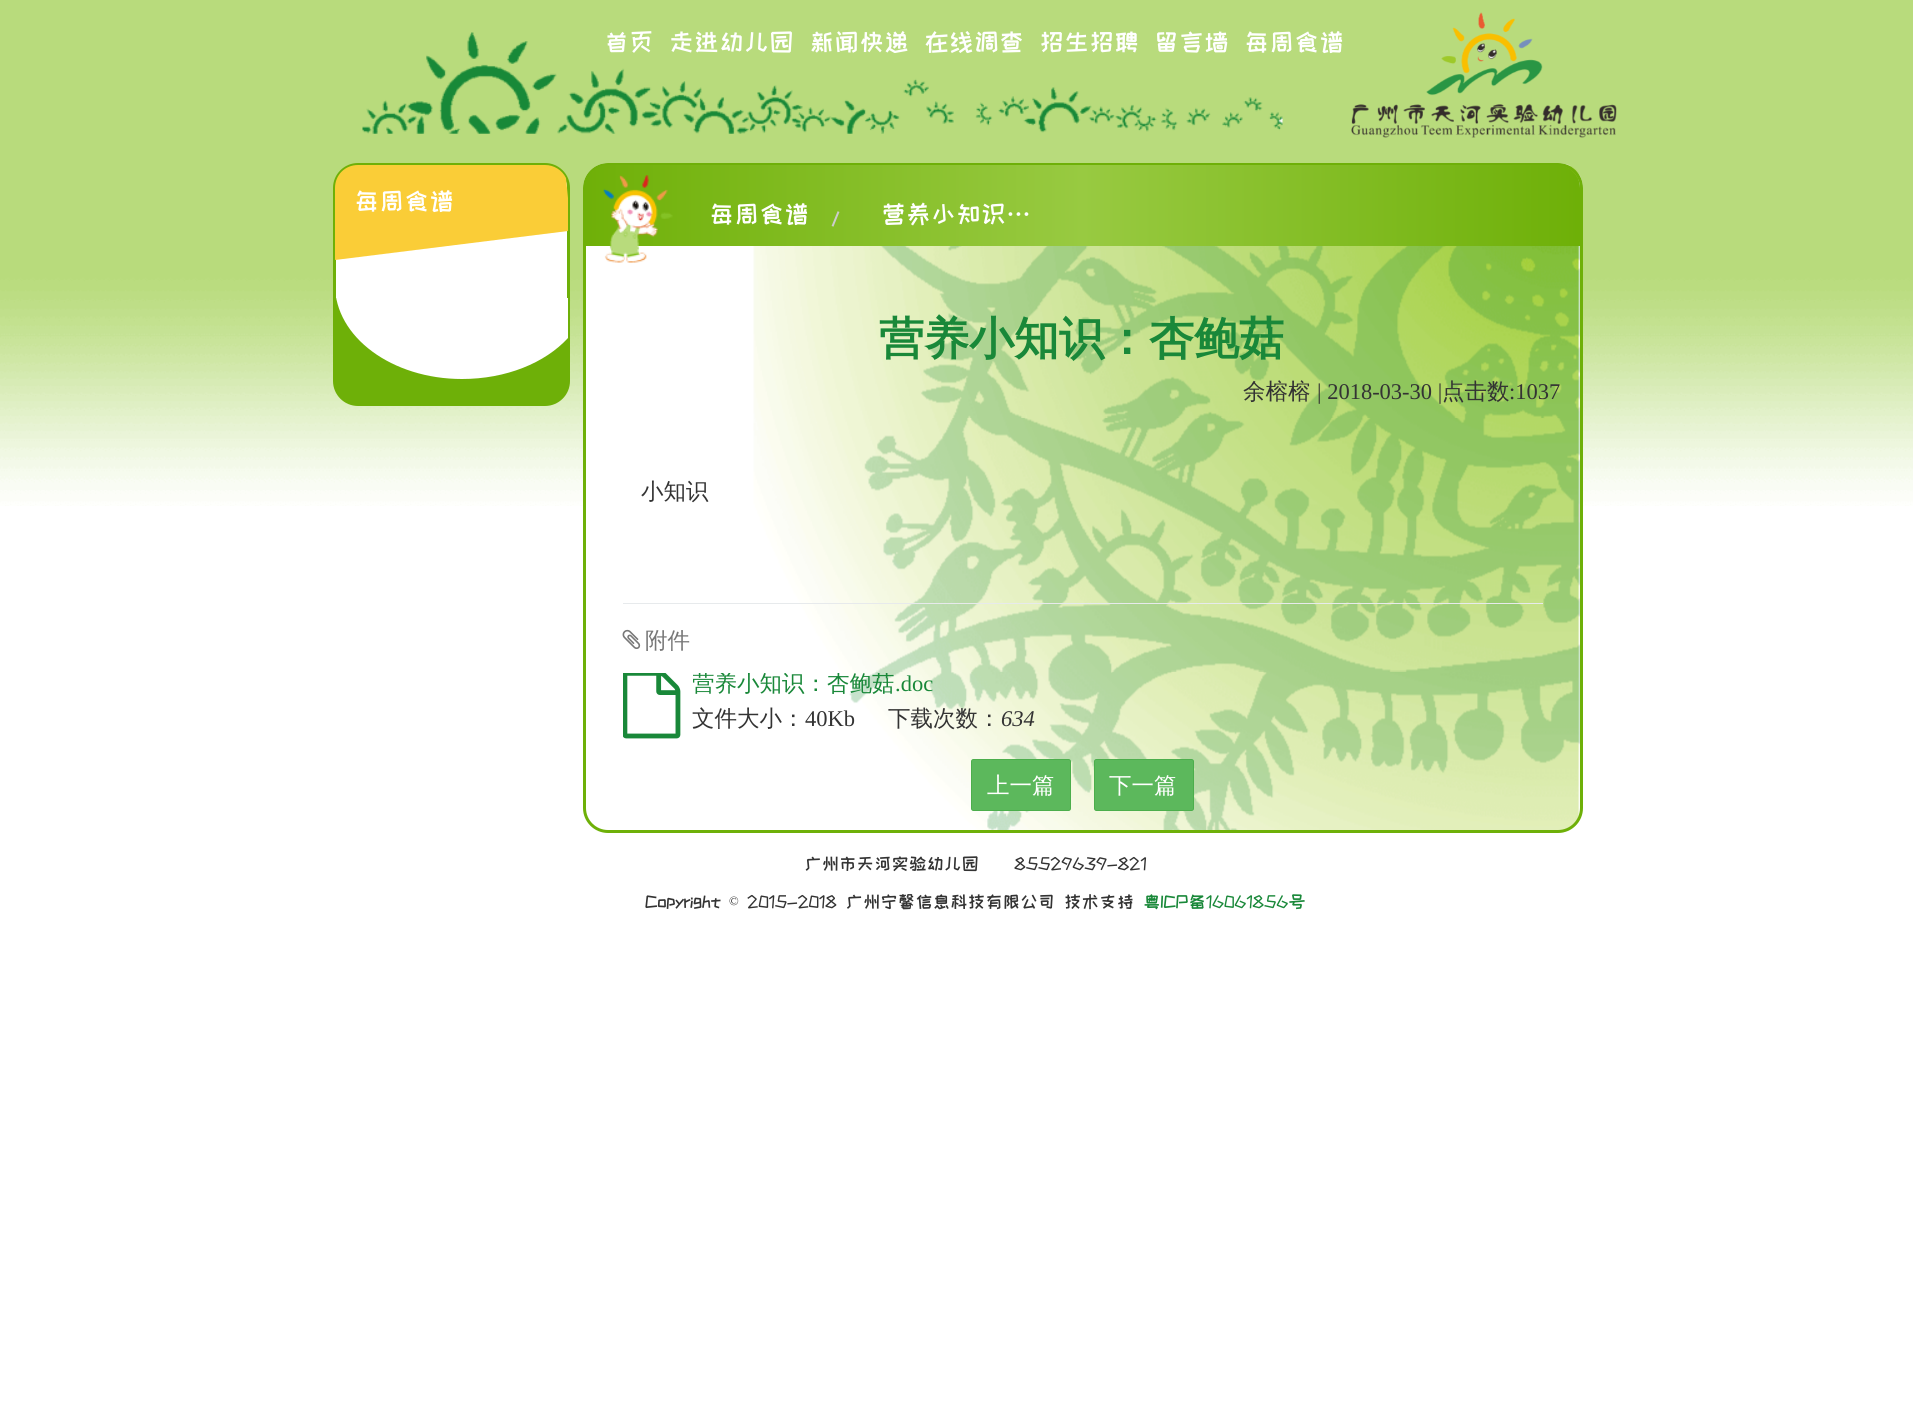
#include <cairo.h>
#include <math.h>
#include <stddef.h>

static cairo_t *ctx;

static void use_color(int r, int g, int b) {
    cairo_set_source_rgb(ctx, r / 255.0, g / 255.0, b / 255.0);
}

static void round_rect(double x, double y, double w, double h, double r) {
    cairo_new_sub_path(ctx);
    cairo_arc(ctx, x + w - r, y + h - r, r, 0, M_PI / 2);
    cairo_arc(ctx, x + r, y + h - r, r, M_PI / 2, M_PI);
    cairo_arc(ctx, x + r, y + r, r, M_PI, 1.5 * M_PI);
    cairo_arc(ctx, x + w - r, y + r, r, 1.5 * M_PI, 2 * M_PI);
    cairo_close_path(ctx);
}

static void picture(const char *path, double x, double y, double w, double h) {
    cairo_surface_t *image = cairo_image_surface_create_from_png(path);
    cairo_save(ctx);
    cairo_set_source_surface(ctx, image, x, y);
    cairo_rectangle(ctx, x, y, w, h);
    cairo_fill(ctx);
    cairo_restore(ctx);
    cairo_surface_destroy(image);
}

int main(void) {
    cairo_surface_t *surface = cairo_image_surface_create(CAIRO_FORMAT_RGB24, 1913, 1413);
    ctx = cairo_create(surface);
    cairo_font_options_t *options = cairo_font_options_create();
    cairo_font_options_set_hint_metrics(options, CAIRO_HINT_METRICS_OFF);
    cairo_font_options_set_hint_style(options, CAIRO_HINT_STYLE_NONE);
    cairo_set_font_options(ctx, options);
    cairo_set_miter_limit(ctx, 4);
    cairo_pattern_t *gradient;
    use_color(255, 255, 255);
    cairo_paint(ctx);
    picture("img1.png", 0, 0, 1913, 506);
    picture("img2.png", 362, 32, 921, 102);
    cairo_select_font_face(ctx, "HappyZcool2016", CAIRO_FONT_SLANT_NORMAL, CAIRO_FONT_WEIGHT_NORMAL);
    cairo_set_font_size(ctx, 25);
    use_color(255, 255, 255);
    cairo_move_to(ctx, 604, 51);
    cairo_show_text(ctx, "首页");
    cairo_move_to(ctx, 669, 51);
    cairo_show_text(ctx, "走进幼儿园");
    cairo_move_to(ctx, 809, 51);
    cairo_show_text(ctx, "新闻快递");
    cairo_move_to(ctx, 924, 51);
    cairo_show_text(ctx, "在线调查");
    cairo_move_to(ctx, 1039, 51);
    cairo_show_text(ctx, "招生招聘");
    cairo_move_to(ctx, 1154, 51);
    cairo_show_text(ctx, "留言墙");
    cairo_move_to(ctx, 1244, 51);
    cairo_show_text(ctx, "每周食谱");
    picture("img3.png", 1351, 12, 266, 126);
    round_rect(334.5, 164.5, 234, 240, 23.5);
    cairo_fill_preserve(ctx);
    use_color(110, 176, 8);
    cairo_set_line_width(ctx, 3);
    cairo_stroke(ctx);
    use_color(250, 205, 55);
    cairo_new_path(ctx);
    cairo_move_to(ctx, 358, 165);
    cairo_line_to(ctx, 545, 165);
    cairo_curve_to(ctx, 554, 165, 562, 170, 566, 178);
    cairo_line_to(ctx, 568, 198);
    cairo_line_to(ctx, 568, 231);
    cairo_line_to(ctx, 335, 260);
    cairo_line_to(ctx, 335, 188);
    cairo_curve_to(ctx, 335, 175, 345, 165, 358, 165);
    cairo_close_path(ctx);
    cairo_fill(ctx);
    use_color(255, 255, 255);
    cairo_move_to(ctx, 354, 210);
    cairo_show_text(ctx, "每周食谱");
    use_color(110, 176, 8);
    cairo_new_path(ctx);
    cairo_move_to(ctx, 335, 298);
    cairo_line_to(ctx, 568, 298);
    cairo_line_to(ctx, 568, 381);
    cairo_curve_to(ctx, 568, 393.5, 557.5, 404, 545, 404);
    cairo_line_to(ctx, 358, 404);
    cairo_curve_to(ctx, 345.5, 404, 335, 393.5, 335, 381);
    cairo_close_path(ctx);
    cairo_fill(ctx);
    cairo_save(ctx);
    cairo_rectangle(ctx, 335, 298, 233, 106);
    cairo_clip(ctx);
    use_color(255, 255, 255);
    cairo_new_path(ctx);
    cairo_move_to(ctx, 462, 191);
    cairo_curve_to(ctx, 506, 191, 545, 207, 568, 232);
    cairo_line_to(ctx, 568, 338);
    cairo_curve_to(ctx, 545, 363, 506, 379, 462, 379);
    cairo_curve_to(ctx, 392, 379, 335, 337, 335, 285);
    cairo_curve_to(ctx, 335, 233, 392, 191, 462, 191);
    cairo_close_path(ctx);
    cairo_fill(ctx);
    cairo_restore(ctx);
    use_color(255, 255, 255);
    round_rect(583, 163, 1000, 670, 25);
    cairo_fill(ctx);
    picture("img4.png", 753, 164, 828, 669);
    round_rect(584.5, 164.5, 997, 667, 23.5);
    use_color(110, 176, 8);
    cairo_stroke(ctx);
    gradient = cairo_pattern_create_linear(585, 206, 1580, 206);
    cairo_pattern_add_color_stop_rgba(gradient, 0, 0.435, 0.69, 0.031, 1);
    cairo_pattern_add_color_stop_rgba(gradient, 0.5, 0.596, 0.792, 0.255, 1);
    cairo_pattern_add_color_stop_rgba(gradient, 1, 0.431, 0.69, 0.031, 1);
    cairo_set_source(ctx, gradient);
    cairo_pattern_destroy(gradient);
    cairo_new_path(ctx);
    cairo_move_to(ctx, 608, 165);
    cairo_line_to(ctx, 1557, 165);
    cairo_curve_to(ctx, 1569.5, 165, 1580, 175.5, 1580, 188);
    cairo_line_to(ctx, 1580, 246);
    cairo_line_to(ctx, 585, 246);
    cairo_line_to(ctx, 585, 188);
    cairo_curve_to(ctx, 585, 175.5, 595.5, 165, 608, 165);
    cairo_close_path(ctx);
    cairo_fill(ctx);
    picture("img5.png", 603, 175, 70, 88);
    use_color(255, 255, 255);
    cairo_move_to(ctx, 709, 223);
    cairo_show_text(ctx, "每周食谱");
    use_color(204, 204, 204);
    cairo_move_to(ctx, 824, 225);
    cairo_show_text(ctx, "/");
    use_color(255, 255, 255);
    cairo_move_to(ctx, 881, 223);
    cairo_show_text(ctx, "营养小知识…");
    cairo_select_font_face(ctx, "WenQuanYi Zen Hei", CAIRO_FONT_SLANT_NORMAL, CAIRO_FONT_WEIGHT_BOLD);
    cairo_set_font_size(ctx, 45);
    use_color(25, 136, 57);
    cairo_move_to(ctx, 879, 354);
    cairo_show_text(ctx, "营养小知识：杏鲍菇");
    cairo_select_font_face(ctx, "WenQuanYi Zen Hei Medium", CAIRO_FONT_SLANT_NORMAL, CAIRO_FONT_WEIGHT_NORMAL);
    cairo_set_font_size(ctx, 22.5);
    use_color(51, 51, 51);
    cairo_move_to(ctx, 1243, 399);
    cairo_show_text(ctx, "余榕榕");
    cairo_select_font_face(ctx, "Liberation Serif", CAIRO_FONT_SLANT_NORMAL, CAIRO_FONT_WEIGHT_NORMAL);
    cairo_move_to(ctx, 1317, 399);
    cairo_show_text(ctx, "| 2018-03-30 |");
    cairo_select_font_face(ctx, "WenQuanYi Zen Hei Medium", CAIRO_FONT_SLANT_NORMAL, CAIRO_FONT_WEIGHT_NORMAL);
    cairo_move_to(ctx, 1442, 399);
    cairo_show_text(ctx, "点击数");
    cairo_select_font_face(ctx, "Liberation Serif", CAIRO_FONT_SLANT_NORMAL, CAIRO_FONT_WEIGHT_NORMAL);
    cairo_move_to(ctx, 1509, 399);
    cairo_show_text(ctx, ":1037");
    cairo_select_font_face(ctx, "WenQuanYi Zen Hei Medium", CAIRO_FONT_SLANT_NORMAL, CAIRO_FONT_WEIGHT_NORMAL);
    cairo_move_to(ctx, 641, 499);
    cairo_show_text(ctx, "小知识");
    use_color(231, 234, 236);
    cairo_rectangle(ctx, 623, 603, 920, 1);
    cairo_fill(ctx);
    picture("img6.png", 622, 629, 19, 20);
    use_color(119, 119, 119);
    cairo_move_to(ctx, 645, 648);
    cairo_show_text(ctx, "附件");
    picture("img7.png", 623, 673, 58, 66);
    cairo_save(ctx);
    cairo_rectangle(ctx, 693, 673, 850, 67);
    cairo_clip(ctx);
    use_color(25, 136, 57);
    cairo_move_to(ctx, 692, 691);
    cairo_show_text(ctx, "营养小知识：杏鲍菇");
    cairo_restore(ctx);
    cairo_select_font_face(ctx, "Liberation Serif", CAIRO_FONT_SLANT_NORMAL, CAIRO_FONT_WEIGHT_NORMAL);
    use_color(25, 136, 57);
    cairo_move_to(ctx, 895, 691);
    cairo_show_text(ctx, ".doc");
    cairo_select_font_face(ctx, "WenQuanYi Zen Hei Medium", CAIRO_FONT_SLANT_NORMAL, CAIRO_FONT_WEIGHT_NORMAL);
    use_color(51, 51, 51);
    cairo_move_to(ctx, 692, 726);
    cairo_show_text(ctx, "文件大小：");
    cairo_select_font_face(ctx, "Liberation Serif", CAIRO_FONT_SLANT_NORMAL, CAIRO_FONT_WEIGHT_NORMAL);
    cairo_move_to(ctx, 805, 726);
    cairo_show_text(ctx, "40Kb");
    cairo_select_font_face(ctx, "WenQuanYi Zen Hei Medium", CAIRO_FONT_SLANT_NORMAL, CAIRO_FONT_WEIGHT_NORMAL);
    cairo_move_to(ctx, 888, 726);
    cairo_show_text(ctx, "下载次数：");
    cairo_select_font_face(ctx, "Liberation Serif", CAIRO_FONT_SLANT_ITALIC, CAIRO_FONT_WEIGHT_NORMAL);
    cairo_move_to(ctx, 1001, 726);
    cairo_show_text(ctx, "634");
    use_color(92, 184, 92);
    round_rect(971.5, 759.5, 99, 51, 2);
    cairo_fill_preserve(ctx);
    use_color(76, 174, 76);
    cairo_set_line_width(ctx, 1);
    cairo_stroke(ctx);
    cairo_select_font_face(ctx, "WenQuanYi Zen Hei Medium", CAIRO_FONT_SLANT_NORMAL, CAIRO_FONT_WEIGHT_NORMAL);
    use_color(255, 255, 255);
    cairo_move_to(ctx, 987, 793);
    cairo_show_text(ctx, "上一篇");
    use_color(92, 184, 92);
    round_rect(1094.5, 759.5, 99, 51, 2);
    cairo_fill_preserve(ctx);
    use_color(76, 174, 76);
    cairo_stroke(ctx);
    use_color(255, 255, 255);
    cairo_move_to(ctx, 1109, 793);
    cairo_show_text(ctx, "下一篇");
    cairo_select_font_face(ctx, "HappyZcool2016", CAIRO_FONT_SLANT_NORMAL, CAIRO_FONT_WEIGHT_NORMAL);
    cairo_set_font_size(ctx, 17.5);
    use_color(51, 51, 51);
    cairo_move_to(ctx, 804, 870);
    cairo_show_text(ctx, "广州市天河实验幼儿园  85529639-821");
    cairo_move_to(ctx, 645, 908);
    cairo_show_text(ctx, "Copyright © 2015-2018 广州宁馨信息科技有限公司 技术支持");
    use_color(25, 136, 57);
    cairo_move_to(ctx, 1143, 908);
    cairo_show_text(ctx, "粤ICP备16061856号");
    cairo_surface_write_to_png(surface, "result.png");
    cairo_font_options_destroy(options);
    cairo_destroy(ctx);
    cairo_surface_destroy(surface);
    return 0;
}
